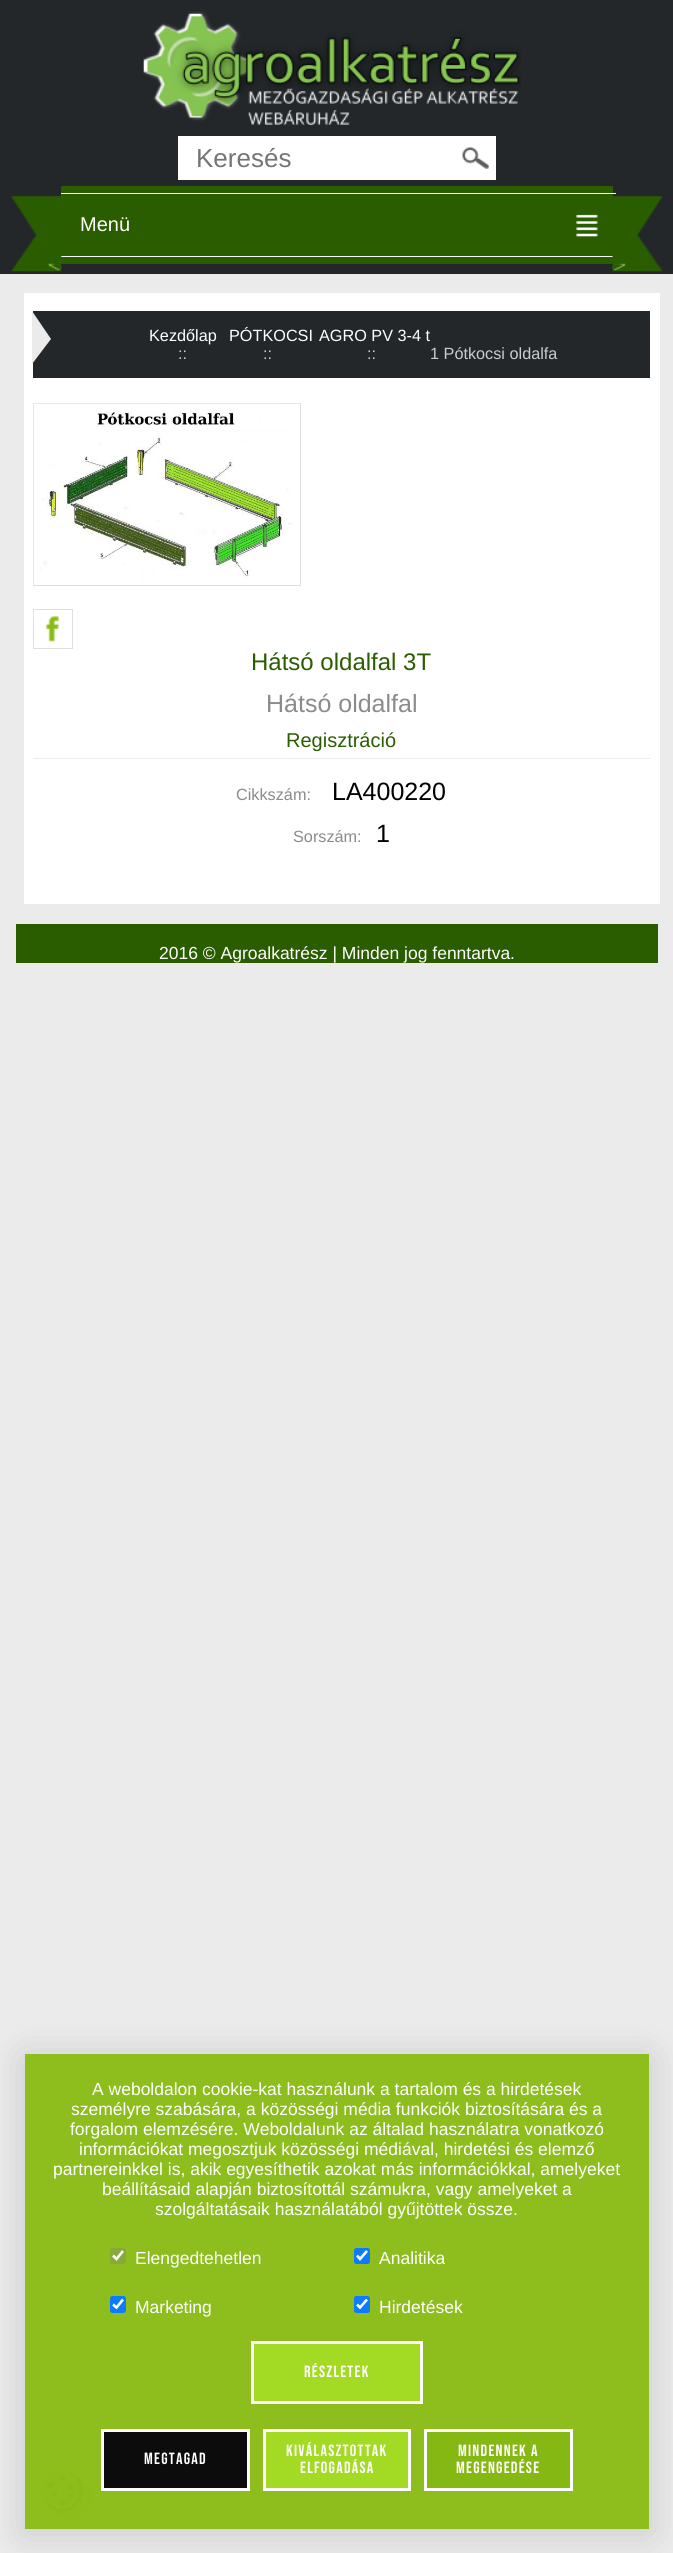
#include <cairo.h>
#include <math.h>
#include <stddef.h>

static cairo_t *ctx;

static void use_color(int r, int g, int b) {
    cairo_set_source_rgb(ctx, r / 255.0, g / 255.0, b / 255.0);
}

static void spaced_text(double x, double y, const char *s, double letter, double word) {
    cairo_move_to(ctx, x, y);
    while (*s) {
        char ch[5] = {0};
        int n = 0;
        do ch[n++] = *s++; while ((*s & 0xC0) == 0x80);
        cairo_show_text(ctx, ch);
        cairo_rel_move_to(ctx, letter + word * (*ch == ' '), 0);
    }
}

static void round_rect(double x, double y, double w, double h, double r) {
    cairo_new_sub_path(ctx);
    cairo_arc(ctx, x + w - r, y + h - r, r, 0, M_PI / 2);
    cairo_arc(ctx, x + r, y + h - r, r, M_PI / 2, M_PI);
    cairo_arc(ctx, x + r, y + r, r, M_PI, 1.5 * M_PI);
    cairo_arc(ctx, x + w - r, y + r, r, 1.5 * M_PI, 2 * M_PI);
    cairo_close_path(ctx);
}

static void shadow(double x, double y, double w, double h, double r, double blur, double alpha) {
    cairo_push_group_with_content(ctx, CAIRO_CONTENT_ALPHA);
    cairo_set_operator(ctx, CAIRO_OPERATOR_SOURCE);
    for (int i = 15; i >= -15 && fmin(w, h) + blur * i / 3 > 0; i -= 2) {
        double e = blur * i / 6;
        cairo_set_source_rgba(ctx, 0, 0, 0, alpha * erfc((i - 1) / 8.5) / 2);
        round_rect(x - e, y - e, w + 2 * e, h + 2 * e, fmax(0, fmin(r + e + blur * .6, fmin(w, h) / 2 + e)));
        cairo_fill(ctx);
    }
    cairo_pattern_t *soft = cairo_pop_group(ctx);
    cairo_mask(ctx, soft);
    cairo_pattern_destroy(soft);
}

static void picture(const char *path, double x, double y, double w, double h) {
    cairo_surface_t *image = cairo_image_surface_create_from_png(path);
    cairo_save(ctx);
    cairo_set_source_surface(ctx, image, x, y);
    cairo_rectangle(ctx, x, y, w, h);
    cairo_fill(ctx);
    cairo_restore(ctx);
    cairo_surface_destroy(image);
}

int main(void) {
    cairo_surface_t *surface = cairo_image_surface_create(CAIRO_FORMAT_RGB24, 673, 2553);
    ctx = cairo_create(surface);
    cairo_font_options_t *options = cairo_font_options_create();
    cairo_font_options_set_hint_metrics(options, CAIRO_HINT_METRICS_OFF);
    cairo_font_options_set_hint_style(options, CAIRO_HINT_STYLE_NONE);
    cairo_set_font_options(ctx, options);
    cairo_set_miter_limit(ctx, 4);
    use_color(235, 235, 235);
    cairo_paint(ctx);
    use_color(35, 39, 42);
    cairo_rectangle(ctx, 0, 0, 673, 274);
    cairo_fill(ctx);
    picture("img1.png", 143, 11, 378, 114);
    use_color(255, 255, 255);
    cairo_rectangle(ctx, 178, 136, 318, 44);
    cairo_fill(ctx);
    cairo_select_font_face(ctx, "Liberation Sans", CAIRO_FONT_SLANT_NORMAL, CAIRO_FONT_WEIGHT_NORMAL);
    cairo_set_font_size(ctx, 26);
    use_color(117, 117, 117);
    cairo_move_to(ctx, 196, 167);
    cairo_show_text(ctx, "Keresés");
    picture("img2.png", 462, 147, 27, 22);
    use_color(42, 93, 0);
    cairo_rectangle(ctx, 61, 186, 552, 78);
    cairo_fill(ctx);
    use_color(255, 255, 255);
    cairo_rectangle(ctx, 61, 256, 555, 1);
    cairo_fill(ctx);
    picture("img3.png", 11, 196, 51, 76);
    picture("img4.png", 576, 214, 22, 23);
    cairo_rectangle(ctx, 61, 193, 555, 1);
    cairo_fill(ctx);
    cairo_set_font_size(ctx, 20);
    cairo_move_to(ctx, 80, 231);
    cairo_show_text(ctx, "Menü");
    picture("img5.png", 612, 196, 51, 76);
    cairo_rectangle(ctx, 24, 293, 636, 611);
    cairo_fill(ctx);
    use_color(35, 39, 42);
    cairo_rectangle(ctx, 33, 311, 617, 67);
    cairo_fill(ctx);
    use_color(235, 235, 235);
    cairo_new_path(ctx);
    cairo_move_to(ctx, 32, 364);
    cairo_line_to(ctx, 32, 311);
    cairo_line_to(ctx, 51, 339);
    cairo_close_path(ctx);
    cairo_fill(ctx);
    cairo_set_font_size(ctx, 16.25);
    use_color(255, 255, 255);
    cairo_move_to(ctx, 149, 341);
    cairo_show_text(ctx, "Kezdőlap");
    use_color(204, 204, 204);
    cairo_move_to(ctx, 178, 359);
    cairo_show_text(ctx, "::");
    use_color(255, 255, 255);
    cairo_move_to(ctx, 229, 341);
    cairo_show_text(ctx, "PÓTKOCSI");
    use_color(204, 204, 204);
    cairo_move_to(ctx, 263, 359);
    cairo_show_text(ctx, "::");
    use_color(255, 255, 255);
    cairo_move_to(ctx, 319, 341);
    cairo_show_text(ctx, "AGRO PV 3-4 t");
    use_color(204, 204, 204);
    cairo_move_to(ctx, 367, 359);
    cairo_show_text(ctx, "::");
    cairo_move_to(ctx, 430, 359);
    cairo_show_text(ctx, "1 Pótkocsi oldalfa");
    cairo_rectangle(ctx, 33.5, 403.5, 267, 182);
    use_color(223, 223, 223);
    cairo_set_line_width(ctx, 1);
    cairo_stroke(ctx);
    picture("img6.png", 33, 403, 267, 182);
    cairo_rectangle(ctx, 33.5, 609.5, 39, 39);
    cairo_stroke(ctx);
    picture("img7.png", 46, 616, 13, 26);
    cairo_set_font_size(ctx, 24);
    use_color(42, 93, 0);
    cairo_move_to(ctx, 251, 670);
    cairo_show_text(ctx, "Hátsó oldalfal 3T");
    cairo_set_font_size(ctx, 25);
    use_color(139, 139, 139);
    cairo_move_to(ctx, 266, 712);
    cairo_show_text(ctx, "Hátsó oldalfal");
    cairo_set_font_size(ctx, 20);
    use_color(42, 93, 0);
    cairo_move_to(ctx, 286, 747);
    cairo_show_text(ctx, "Regisztráció");
    use_color(235, 235, 235);
    cairo_rectangle(ctx, 33, 758, 617, 1);
    cairo_fill(ctx);
    cairo_set_font_size(ctx, 16.25);
    use_color(139, 139, 139);
    cairo_move_to(ctx, 236, 800);
    cairo_show_text(ctx, "Cikkszám:");
    cairo_set_font_size(ctx, 25);
    use_color(0, 0, 0);
    cairo_move_to(ctx, 332, 800);
    cairo_show_text(ctx, "LA400220");
    cairo_set_font_size(ctx, 16.25);
    use_color(139, 139, 139);
    cairo_move_to(ctx, 293, 842);
    cairo_show_text(ctx, "Sorszám:");
    cairo_set_font_size(ctx, 25);
    use_color(0, 0, 0);
    cairo_move_to(ctx, 376, 842);
    cairo_show_text(ctx, "1");
    use_color(42, 93, 0);
    cairo_rectangle(ctx, 16, 924, 642, 39);
    cairo_fill(ctx);
    cairo_set_font_size(ctx, 17.5);
    use_color(255, 255, 255);
    cairo_move_to(ctx, 159, 959);
    cairo_show_text(ctx, "2016 © Agroalkatrész | Minden jog fenntartva.");
    picture("img8.png", 31, 2460, 64, 63);
    cairo_save(ctx);
    cairo_set_fill_rule(ctx, CAIRO_FILL_RULE_EVEN_ODD);
    cairo_new_path(ctx);
    cairo_move_to(ctx, 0, 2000);
    cairo_line_to(ctx, 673, 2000);
    cairo_line_to(ctx, 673, 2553);
    cairo_line_to(ctx, 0, 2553);
    cairo_close_path(ctx);
    cairo_move_to(ctx, 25, 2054);
    cairo_line_to(ctx, 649, 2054);
    cairo_line_to(ctx, 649, 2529);
    cairo_line_to(ctx, 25, 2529);
    cairo_close_path(ctx);
    cairo_clip(ctx);
    use_color(12, 12, 12);
    shadow(25, 2058, 624, 475, 0, 19, 0.16);
    cairo_restore(ctx);
    cairo_set_source_rgba(ctx, 0.537, 0.737, 0.075, 0.95);
    cairo_rectangle(ctx, 25, 2054, 624, 475);
    cairo_fill(ctx);
    use_color(255, 255, 255);
    cairo_move_to(ctx, 92, 2095);
    cairo_show_text(ctx, "A weboldalon cookie-kat használunk a tartalom és a hirdetések");
    cairo_move_to(ctx, 71, 2115);
    cairo_show_text(ctx, "személyre szabására, a közösségi média funkciók biztosítására és a");
    cairo_move_to(ctx, 70, 2135);
    cairo_show_text(ctx, "forgalom elemzésére. Weboldalunk az általad használatra vonatkozó");
    cairo_move_to(ctx, 79, 2155);
    cairo_show_text(ctx, "információkat megosztjuk közösségi médiával, hirdetési és elemző");
    cairo_move_to(ctx, 53, 2175);
    cairo_show_text(ctx, "partnereinkkel is, akik egyesíthetik azokat más információkkal, amelyeket");
    cairo_move_to(ctx, 102, 2195);
    cairo_show_text(ctx, "beállításaid alapján biztosítottál számukra, vagy amelyeket a");
    cairo_move_to(ctx, 155, 2215);
    cairo_show_text(ctx, "szolgáltatásaik használatából gyűjtöttek össze.");
    use_color(136, 170, 58);
    round_rect(110, 2248, 16, 16, 2.5);
    cairo_fill(ctx);
    cairo_new_path(ctx);
    cairo_move_to(ctx, 113, 2255.5);
    cairo_line_to(ctx, 116.5, 2259);
    cairo_line_to(ctx, 123, 2251);
    use_color(254, 254, 254);
    cairo_set_line_width(ctx, 2.6);
    cairo_stroke(ctx);
    use_color(255, 255, 255);
    cairo_move_to(ctx, 135, 2264);
    cairo_show_text(ctx, "Elengedtehetlen");
    use_color(12, 123, 254);
    round_rect(354, 2248, 16, 16, 2.5);
    cairo_fill(ctx);
    cairo_new_path(ctx);
    cairo_move_to(ctx, 357, 2255.5);
    cairo_line_to(ctx, 360, 2259);
    cairo_line_to(ctx, 367, 2251);
    use_color(254, 254, 254);
    cairo_stroke(ctx);
    use_color(255, 255, 255);
    cairo_move_to(ctx, 379, 2264);
    cairo_show_text(ctx, "Analitika");
    use_color(12, 123, 254);
    round_rect(110, 2296, 16, 17, 2.5);
    cairo_fill(ctx);
    cairo_new_path(ctx);
    cairo_move_to(ctx, 113, 2304.5);
    cairo_line_to(ctx, 116.5, 2307.5);
    cairo_line_to(ctx, 123, 2299.5);
    use_color(254, 254, 254);
    cairo_stroke(ctx);
    use_color(255, 255, 255);
    cairo_move_to(ctx, 135, 2313);
    cairo_show_text(ctx, "Marketing");
    use_color(12, 123, 254);
    round_rect(354, 2296, 16, 17, 2.5);
    cairo_fill(ctx);
    cairo_new_path(ctx);
    cairo_move_to(ctx, 357, 2304.5);
    cairo_line_to(ctx, 360, 2307.5);
    cairo_line_to(ctx, 367, 2299.5);
    use_color(254, 254, 254);
    cairo_stroke(ctx);
    use_color(255, 255, 255);
    cairo_move_to(ctx, 379, 2313);
    cairo_show_text(ctx, "Hirdetések");
    use_color(163, 218, 36);
    cairo_rectangle(ctx, 252.5, 2342.5, 169, 60);
    cairo_fill_preserve(ctx);
    use_color(254, 254, 254);
    cairo_set_line_width(ctx, 3);
    cairo_stroke(ctx);
    cairo_select_font_face(ctx, "Bebas Neue", CAIRO_FONT_SLANT_NORMAL, CAIRO_FONT_WEIGHT_NORMAL);
    cairo_set_font_size(ctx, 16.25);
    use_color(255, 255, 255);
    spaced_text(304, 2377, "Részletek", 1.25, 0);
    use_color(12, 12, 12);
    cairo_rectangle(ctx, 102.5, 2430.5, 146, 59);
    cairo_fill_preserve(ctx);
    use_color(254, 254, 254);
    cairo_stroke(ctx);
    use_color(255, 255, 255);
    spaced_text(144, 2464, "Megtagad", 1.25, 0);
    use_color(163, 218, 36);
    cairo_rectangle(ctx, 264.5, 2430.5, 145, 59);
    cairo_fill_preserve(ctx);
    use_color(254, 254, 254);
    cairo_stroke(ctx);
    use_color(255, 255, 255);
    spaced_text(286, 2456, "Kiválasztottak", 1.25, 0);
    spaced_text(300, 2473, "elfogadása", 1.25, 0);
    use_color(134, 184, 20);
    cairo_rectangle(ctx, 425.5, 2430.5, 146, 59);
    cairo_fill_preserve(ctx);
    use_color(254, 254, 254);
    cairo_stroke(ctx);
    use_color(255, 255, 255);
    spaced_text(458, 2456, "Mindennek a", 1.25, 0);
    spaced_text(456, 2473, "megengedése", 1.25, 0);
    cairo_surface_write_to_png(surface, "result.png");
    cairo_font_options_destroy(options);
    cairo_destroy(ctx);
    cairo_surface_destroy(surface);
    return 0;
}
